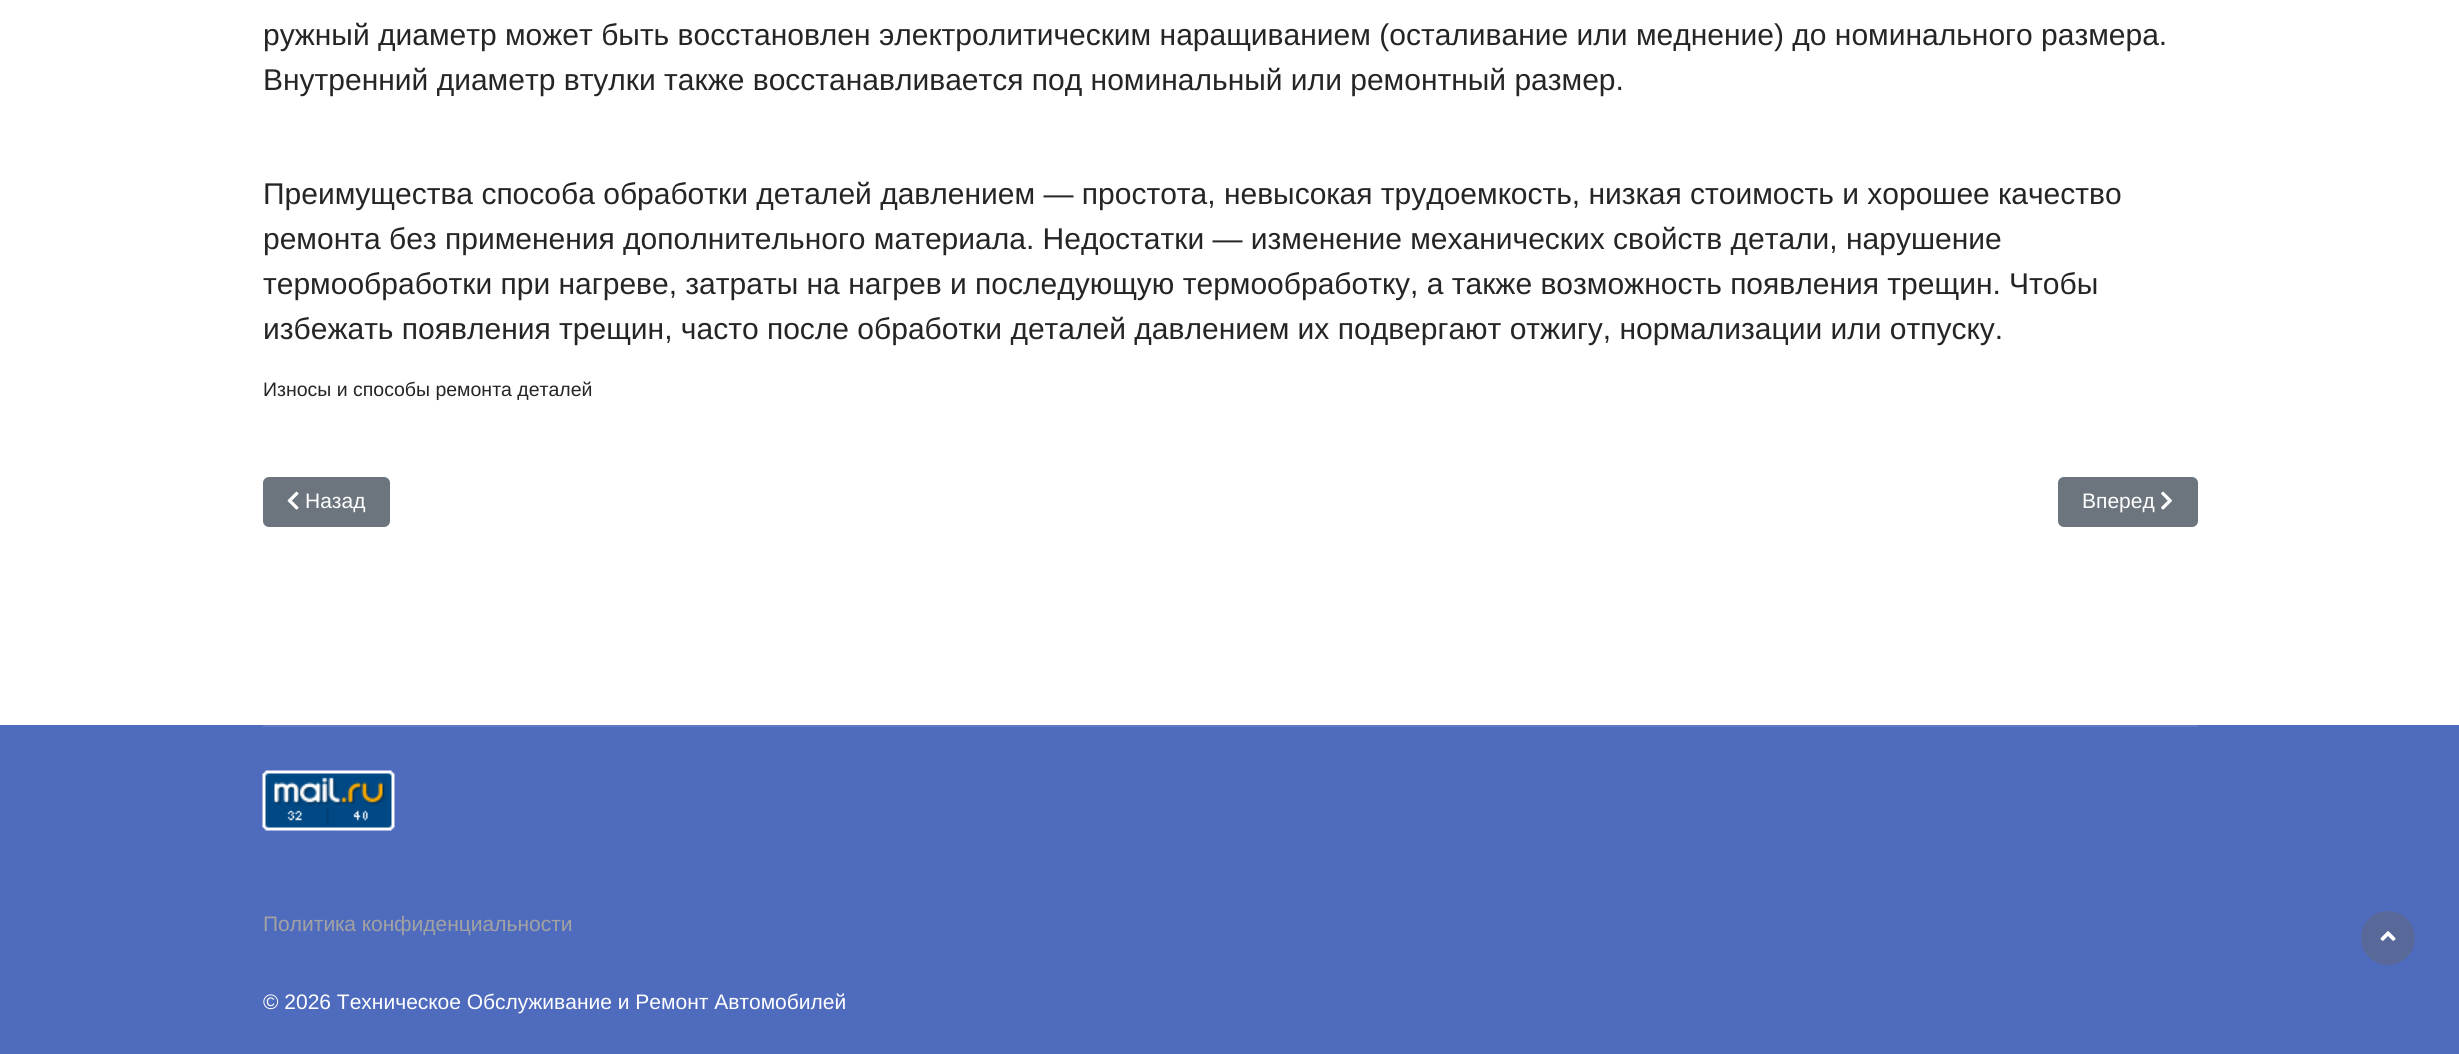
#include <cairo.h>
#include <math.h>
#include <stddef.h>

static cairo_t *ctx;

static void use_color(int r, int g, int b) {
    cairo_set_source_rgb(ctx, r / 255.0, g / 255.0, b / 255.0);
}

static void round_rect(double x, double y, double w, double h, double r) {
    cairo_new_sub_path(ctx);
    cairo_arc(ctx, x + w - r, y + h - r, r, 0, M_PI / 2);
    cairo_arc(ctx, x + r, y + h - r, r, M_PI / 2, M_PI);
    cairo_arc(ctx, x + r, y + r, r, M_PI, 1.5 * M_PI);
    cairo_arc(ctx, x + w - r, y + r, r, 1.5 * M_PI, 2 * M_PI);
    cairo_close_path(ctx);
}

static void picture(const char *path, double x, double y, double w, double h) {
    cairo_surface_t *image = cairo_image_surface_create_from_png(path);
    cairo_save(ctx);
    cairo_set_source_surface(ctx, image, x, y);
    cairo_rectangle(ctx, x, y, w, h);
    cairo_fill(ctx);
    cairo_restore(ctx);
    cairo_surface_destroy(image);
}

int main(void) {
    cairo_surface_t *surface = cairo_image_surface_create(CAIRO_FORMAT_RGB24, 2459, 1054);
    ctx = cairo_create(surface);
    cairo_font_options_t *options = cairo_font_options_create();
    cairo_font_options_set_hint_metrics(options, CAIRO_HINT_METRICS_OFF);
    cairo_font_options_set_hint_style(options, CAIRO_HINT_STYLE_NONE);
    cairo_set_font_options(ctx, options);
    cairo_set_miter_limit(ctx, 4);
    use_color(255, 255, 255);
    cairo_paint(ctx);
    cairo_select_font_face(ctx, "Liberation Sans", CAIRO_FONT_SLANT_NORMAL, CAIRO_FONT_WEIGHT_NORMAL);
    cairo_set_font_size(ctx, 30);
    use_color(37, 37, 37);
    cairo_move_to(ctx, 263, 45);
    cairo_show_text(ctx, "ружный диаметр может быть восстановлен электролитическим наращиванием (осталивание или меднение) до номинального размера.");
    cairo_move_to(ctx, 263, 90);
    cairo_show_text(ctx, "Внутренний диаметр втулки также восстанавливается под номинальный или ремонтный размер.");
    cairo_move_to(ctx, 263, 204);
    cairo_show_text(ctx, "Преимущества способа обработки деталей давлением — простота, невысокая трудоемкость, низкая стоимость и хорошее качество");
    cairo_move_to(ctx, 263, 249);
    cairo_show_text(ctx, "ремонта без применения дополнительного материала. Недостатки — изменение механических свойств детали, нарушение");
    cairo_move_to(ctx, 263, 294);
    cairo_show_text(ctx, "термообработки при нагреве, затраты на нагрев и последующую термообработку, а также возможность появления трещин. Чтобы");
    cairo_move_to(ctx, 263, 339);
    cairo_show_text(ctx, "избежать появления трещин, часто после обработки деталей давлением их подвергают отжигу, нормализации или отпуску.");
    cairo_set_font_size(ctx, 19.5);
    cairo_move_to(ctx, 263, 396);
    cairo_show_text(ctx, "Износы и способы ремонта деталей");
    use_color(108, 117, 125);
    round_rect(264, 478, 125, 48, 5);
    cairo_fill_preserve(ctx);
    cairo_stroke(ctx);
    picture("img1.png", 287, 491, 12, 19);
    cairo_set_font_size(ctx, 21);
    use_color(255, 255, 255);
    cairo_move_to(ctx, 305, 508);
    cairo_show_text(ctx, "Назад");
    use_color(108, 117, 125);
    round_rect(2059, 478, 138, 48, 5);
    cairo_fill_preserve(ctx);
    cairo_stroke(ctx);
    use_color(255, 255, 255);
    cairo_move_to(ctx, 2082, 508);
    cairo_show_text(ctx, "Вперед");
    picture("img2.png", 2161, 491, 11, 19);
    use_color(79, 107, 189);
    cairo_rectangle(ctx, 0, 725, 2459, 329);
    cairo_fill(ctx);
    use_color(97, 122, 196);
    cairo_rectangle(ctx, 263, 725, 1935, 2);
    cairo_fill(ctx);
    picture("img3.png", 262, 770, 133, 61);
    use_color(162, 162, 162);
    cairo_move_to(ctx, 263, 931);
    cairo_show_text(ctx, "Политика конфиденциальности");
    use_color(255, 255, 255);
    cairo_move_to(ctx, 263, 1009);
    cairo_show_text(ctx, "© 2026 Техническое Обслуживание и Ремонт Автомобилей");
    use_color(87, 104, 153);
    cairo_new_path(ctx);
    cairo_arc(ctx, 2388, 938, 27, 0, 2 * M_PI);
    cairo_fill(ctx);
    picture("img4.png", 2380, 931, 16, 10);
    cairo_surface_write_to_png(surface, "result.png");
    cairo_font_options_destroy(options);
    cairo_destroy(ctx);
    cairo_surface_destroy(surface);
    return 0;
}
